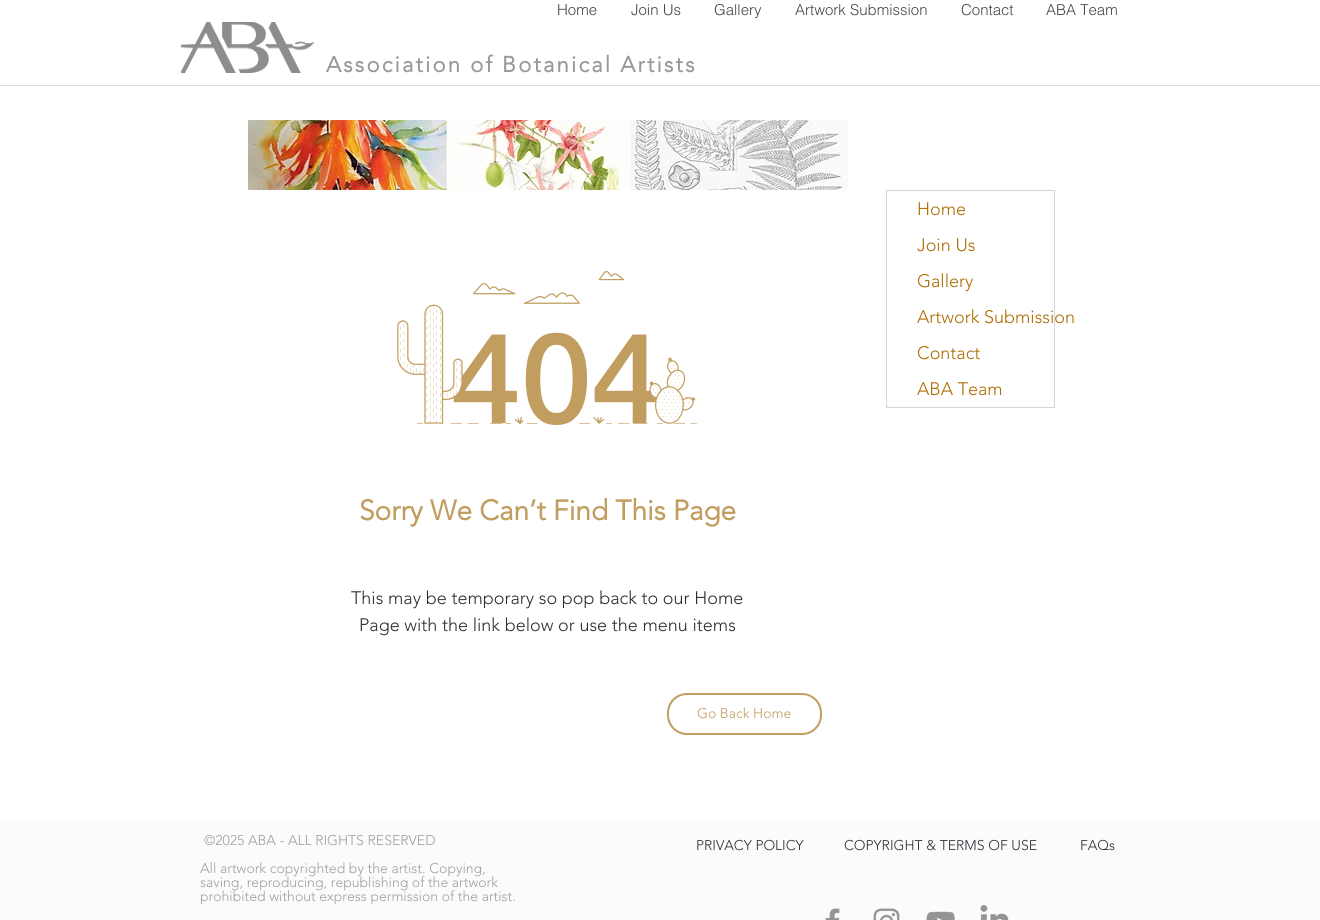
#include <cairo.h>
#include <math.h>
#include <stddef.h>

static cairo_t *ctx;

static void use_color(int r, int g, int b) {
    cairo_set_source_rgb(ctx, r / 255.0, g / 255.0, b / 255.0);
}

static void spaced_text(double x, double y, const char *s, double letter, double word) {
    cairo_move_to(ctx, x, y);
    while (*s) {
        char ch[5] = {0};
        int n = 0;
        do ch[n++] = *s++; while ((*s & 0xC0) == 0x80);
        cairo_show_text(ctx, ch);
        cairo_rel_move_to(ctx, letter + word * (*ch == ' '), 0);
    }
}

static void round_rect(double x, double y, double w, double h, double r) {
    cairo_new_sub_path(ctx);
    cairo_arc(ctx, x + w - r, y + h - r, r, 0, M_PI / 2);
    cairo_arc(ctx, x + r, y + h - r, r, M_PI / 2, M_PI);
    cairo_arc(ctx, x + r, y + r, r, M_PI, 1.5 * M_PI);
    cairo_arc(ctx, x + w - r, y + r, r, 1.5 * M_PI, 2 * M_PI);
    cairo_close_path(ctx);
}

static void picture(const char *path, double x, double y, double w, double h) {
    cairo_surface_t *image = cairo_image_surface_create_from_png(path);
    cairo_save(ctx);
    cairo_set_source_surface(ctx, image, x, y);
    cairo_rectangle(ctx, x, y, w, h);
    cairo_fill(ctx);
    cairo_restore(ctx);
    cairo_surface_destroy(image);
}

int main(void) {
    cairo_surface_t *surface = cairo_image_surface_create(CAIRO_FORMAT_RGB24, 1320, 920);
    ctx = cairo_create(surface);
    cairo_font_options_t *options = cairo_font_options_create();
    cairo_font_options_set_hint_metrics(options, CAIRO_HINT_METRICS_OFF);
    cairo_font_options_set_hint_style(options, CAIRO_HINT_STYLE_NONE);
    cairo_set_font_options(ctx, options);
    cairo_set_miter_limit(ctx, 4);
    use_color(255, 255, 255);
    cairo_paint(ctx);
    cairo_select_font_face(ctx, "helvetica Light", CAIRO_FONT_SLANT_NORMAL, CAIRO_FONT_WEIGHT_NORMAL);
    cairo_set_font_size(ctx, 15);
    use_color(68, 68, 68);
    cairo_move_to(ctx, 557, 15);
    cairo_show_text(ctx, "Home");
    cairo_move_to(ctx, 631, 15);
    cairo_show_text(ctx, "Join Us");
    cairo_move_to(ctx, 714, 15);
    cairo_show_text(ctx, "Gallery");
    cairo_move_to(ctx, 795, 15);
    cairo_show_text(ctx, "Artwork Submission");
    cairo_move_to(ctx, 961, 15);
    cairo_show_text(ctx, "Contact");
    cairo_move_to(ctx, 1046, 15);
    cairo_show_text(ctx, "ABA Team");
    picture("img1.png", 181, 22, 133, 51);
    cairo_select_font_face(ctx, "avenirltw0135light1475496", CAIRO_FONT_SLANT_NORMAL, CAIRO_FONT_WEIGHT_BOLD);
    cairo_set_font_size(ctx, 22);
    use_color(153, 153, 153);
    spaced_text(326, 72, "Association of Botanical Artists", 2.2, 0);
    use_color(221, 221, 221);
    cairo_rectangle(ctx, 0, 85, 1320, 1);
    cairo_fill(ctx);
    picture("img2.png", 248, 120, 600, 70);
    picture("img3.png", 397, 271, 300, 154);
    cairo_rectangle(ctx, 886.5, 190.5, 168, 217);
    use_color(213, 213, 214);
    cairo_set_line_width(ctx, 1);
    cairo_stroke(ctx);
    cairo_select_font_face(ctx, "avenirltw0135light1475496 Light", CAIRO_FONT_SLANT_NORMAL, CAIRO_FONT_WEIGHT_NORMAL);
    cairo_set_font_size(ctx, 18);
    use_color(172, 108, 0);
    cairo_move_to(ctx, 917, 215);
    cairo_show_text(ctx, "Home");
    cairo_move_to(ctx, 917, 251);
    cairo_show_text(ctx, "Join Us");
    cairo_move_to(ctx, 917, 287);
    cairo_show_text(ctx, "Gallery");
    cairo_move_to(ctx, 917, 323);
    cairo_show_text(ctx, "Artwork Submission");
    cairo_move_to(ctx, 917, 359);
    cairo_show_text(ctx, "Contact");
    cairo_move_to(ctx, 917, 395);
    cairo_show_text(ctx, "ABA Team");
    cairo_select_font_face(ctx, "avenirltw0135light1475496", CAIRO_FONT_SLANT_NORMAL, CAIRO_FONT_WEIGHT_BOLD);
    cairo_set_font_size(ctx, 28);
    use_color(193, 157, 96);
    cairo_move_to(ctx, 359, 520);
    cairo_show_text(ctx, "Sorry We Can’t Find This Page");
    cairo_select_font_face(ctx, "avenirltw0135light1475496 Light", CAIRO_FONT_SLANT_NORMAL, CAIRO_FONT_WEIGHT_NORMAL);
    cairo_set_font_size(ctx, 18);
    use_color(44, 45, 52);
    cairo_move_to(ctx, 351, 604);
    cairo_show_text(ctx, "This may be temporary so pop back to our Home");
    cairo_move_to(ctx, 359, 631);
    cairo_show_text(ctx, "Page with the link below or use the menu items");
    round_rect(668, 694, 153, 40, 19);
    use_color(193, 157, 96);
    cairo_set_line_width(ctx, 2);
    cairo_stroke(ctx);
    cairo_set_font_size(ctx, 14);
    cairo_move_to(ctx, 697, 718);
    cairo_show_text(ctx, "Go Back Home");
    use_color(251, 251, 251);
    cairo_rectangle(ctx, 0, 821, 1320, 99);
    cairo_fill(ctx);
    use_color(154, 160, 161);
    cairo_move_to(ctx, 204, 845);
    cairo_show_text(ctx, "©2025 ABA - ALL RIGHTS RESERVED");
    cairo_move_to(ctx, 200, 873);
    cairo_show_text(ctx, "All artwork copyrighted by the artist. Copying,");
    cairo_move_to(ctx, 200, 887);
    cairo_show_text(ctx, "saving, reproducing, republishing of the artwork");
    cairo_move_to(ctx, 200, 901);
    cairo_show_text(ctx, "prohibited without express permission of the artist.");
    use_color(44, 45, 52);
    cairo_move_to(ctx, 696, 850);
    cairo_show_text(ctx, "PRIVACY POLICY");
    cairo_move_to(ctx, 844, 850);
    cairo_show_text(ctx, "COPYRIGHT & TERMS OF USE");
    cairo_move_to(ctx, 1080, 850);
    cairo_show_text(ctx, "FAQs");
    picture("img4.png", 825, 908, 15, 12);
    picture("img5.png", 873, 908, 27, 12);
    picture("img6.png", 926, 911, 29, 9);
    picture("img7.png", 980, 905, 29, 15);
    cairo_surface_write_to_png(surface, "result.png");
    cairo_font_options_destroy(options);
    cairo_destroy(ctx);
    cairo_surface_destroy(surface);
    return 0;
}
